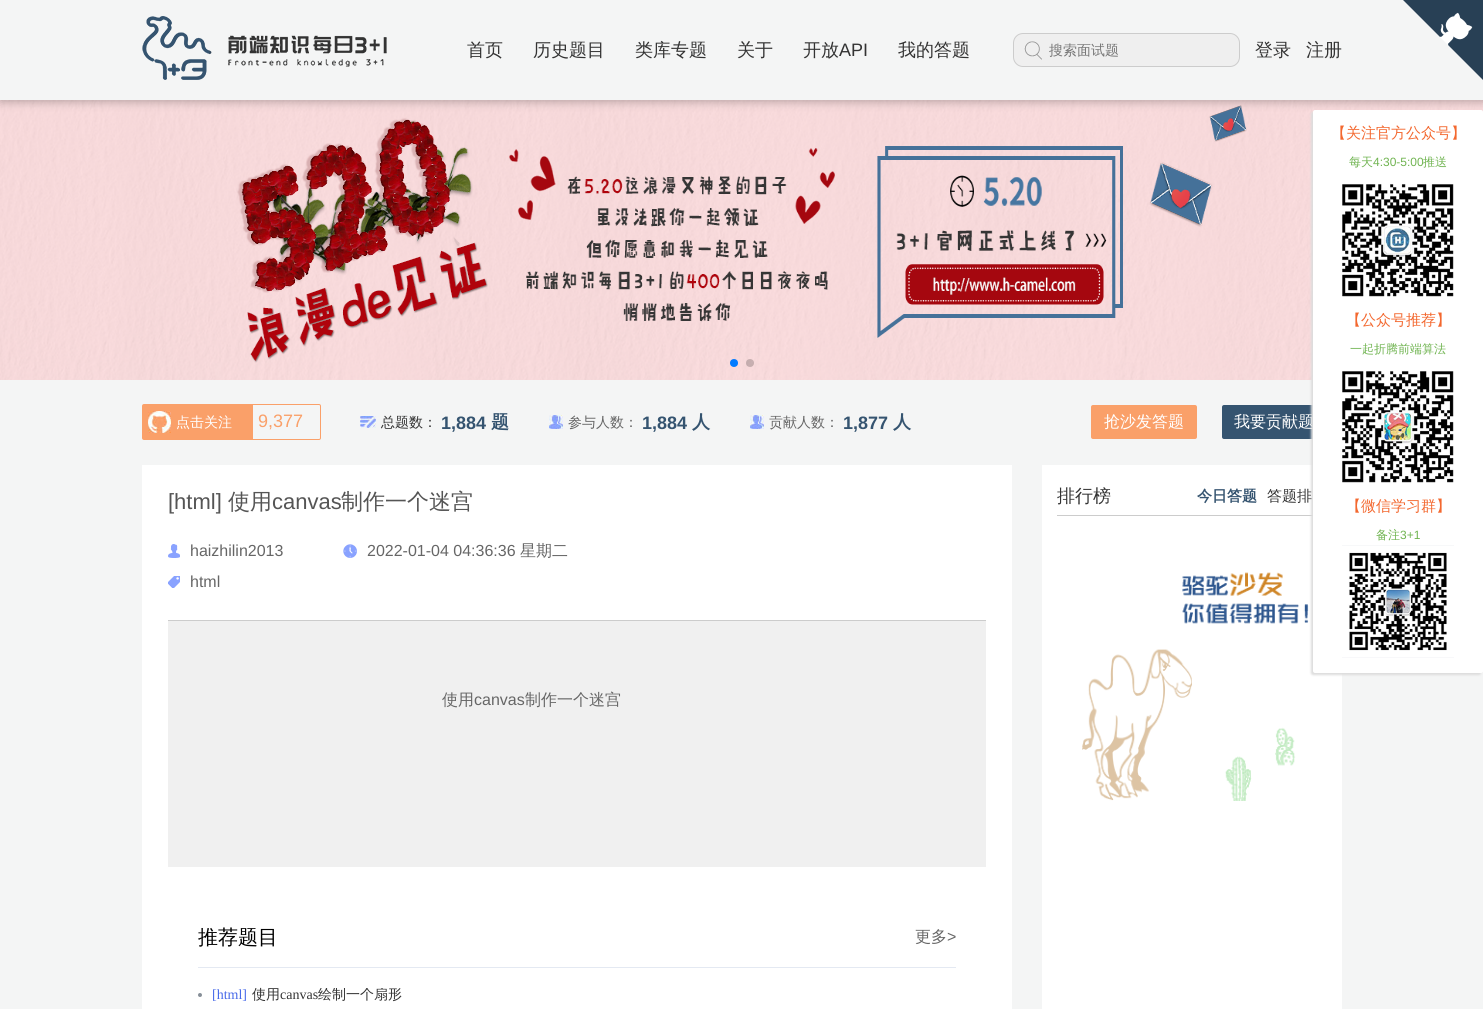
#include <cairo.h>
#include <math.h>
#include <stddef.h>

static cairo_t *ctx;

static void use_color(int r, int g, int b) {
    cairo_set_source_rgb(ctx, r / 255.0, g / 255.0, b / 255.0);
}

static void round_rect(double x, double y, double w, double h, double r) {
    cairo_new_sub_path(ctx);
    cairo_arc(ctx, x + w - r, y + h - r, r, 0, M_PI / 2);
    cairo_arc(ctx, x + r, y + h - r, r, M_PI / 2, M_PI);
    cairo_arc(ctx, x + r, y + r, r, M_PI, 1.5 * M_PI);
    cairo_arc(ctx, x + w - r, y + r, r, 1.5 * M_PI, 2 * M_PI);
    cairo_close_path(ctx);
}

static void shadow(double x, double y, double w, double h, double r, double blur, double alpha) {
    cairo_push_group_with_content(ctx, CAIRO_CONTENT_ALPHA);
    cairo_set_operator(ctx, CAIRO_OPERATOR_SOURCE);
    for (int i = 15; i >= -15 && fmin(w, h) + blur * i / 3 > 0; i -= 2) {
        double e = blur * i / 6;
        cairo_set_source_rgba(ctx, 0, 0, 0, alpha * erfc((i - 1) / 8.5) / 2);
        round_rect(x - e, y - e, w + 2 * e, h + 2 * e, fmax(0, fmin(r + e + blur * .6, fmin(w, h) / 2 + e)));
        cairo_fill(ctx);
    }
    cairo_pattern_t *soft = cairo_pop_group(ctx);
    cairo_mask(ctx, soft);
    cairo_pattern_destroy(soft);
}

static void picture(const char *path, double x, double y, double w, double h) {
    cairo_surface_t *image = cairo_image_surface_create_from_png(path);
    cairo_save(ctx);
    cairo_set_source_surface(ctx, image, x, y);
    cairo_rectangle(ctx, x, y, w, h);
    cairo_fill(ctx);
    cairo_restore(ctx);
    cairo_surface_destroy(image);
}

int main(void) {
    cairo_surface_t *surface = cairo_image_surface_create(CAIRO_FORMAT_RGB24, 1483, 1009);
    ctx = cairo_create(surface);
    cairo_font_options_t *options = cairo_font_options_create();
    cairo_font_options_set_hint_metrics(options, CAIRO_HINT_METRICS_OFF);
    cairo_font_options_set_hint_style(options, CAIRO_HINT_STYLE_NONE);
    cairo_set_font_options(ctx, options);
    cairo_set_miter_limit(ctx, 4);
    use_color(244, 245, 245);
    cairo_paint(ctx);
    picture("img4.png", 0, 100, 1483, 280);
    use_color(0, 0, 0);
    shadow(1, 1, 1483, 100, 0, 5, 0.3);
    use_color(244, 245, 245);
    cairo_rectangle(ctx, 0, 0, 1483, 100);
    cairo_fill(ctx);
    picture("img1.png", 142, 16, 245, 64);
    cairo_select_font_face(ctx, "WenQuanYi Zen Hei Medium", CAIRO_FONT_SLANT_NORMAL, CAIRO_FONT_WEIGHT_NORMAL);
    cairo_set_font_size(ctx, 18);
    use_color(51, 51, 51);
    cairo_move_to(ctx, 467, 56);
    cairo_show_text(ctx, "首页");
    cairo_move_to(ctx, 533, 56);
    cairo_show_text(ctx, "历史题目");
    cairo_move_to(ctx, 635, 56);
    cairo_show_text(ctx, "类库专题");
    cairo_move_to(ctx, 737, 56);
    cairo_show_text(ctx, "关于");
    cairo_move_to(ctx, 803, 56);
    cairo_show_text(ctx, "开放");
    cairo_select_font_face(ctx, "Liberation Sans", CAIRO_FONT_SLANT_NORMAL, CAIRO_FONT_WEIGHT_NORMAL);
    cairo_move_to(ctx, 839, 56);
    cairo_show_text(ctx, "API");
    cairo_select_font_face(ctx, "WenQuanYi Zen Hei Medium", CAIRO_FONT_SLANT_NORMAL, CAIRO_FONT_WEIGHT_NORMAL);
    cairo_move_to(ctx, 898, 56);
    cairo_show_text(ctx, "我的答题");
    use_color(239, 239, 239);
    round_rect(1013.5, 33.5, 226, 33, 9.5);
    cairo_fill_preserve(ctx);
    use_color(204, 204, 204);
    cairo_set_line_width(ctx, 1);
    cairo_stroke(ctx);
    picture("img2.png", 1024, 41, 18, 19);
    cairo_set_font_size(ctx, 14);
    use_color(117, 117, 117);
    cairo_move_to(ctx, 1049, 55);
    cairo_show_text(ctx, "搜索面试题");
    cairo_set_font_size(ctx, 18);
    use_color(51, 51, 51);
    cairo_move_to(ctx, 1255, 56);
    cairo_show_text(ctx, "登录");
    cairo_move_to(ctx, 1306, 56);
    cairo_show_text(ctx, "注册");
    picture("img3.png", 1403, 0, 80, 80);
    use_color(0, 122, 255);
    cairo_arc(ctx, 734, 363, 4, 0, 2 * M_PI);
    cairo_fill(ctx);
    cairo_set_source_rgba(ctx, 0, 0, 0, 0.2);
    cairo_arc(ctx, 750, 363, 4, 0, 2 * M_PI);
    cairo_fill(ctx);
    round_rect(142.5, 404.5, 178, 35, 1.5);
    use_color(250, 160, 105);
    cairo_stroke(ctx);
    cairo_rectangle(ctx, 143, 405, 110, 34);
    cairo_fill(ctx);
    picture("img5.png", 148, 411, 23, 22);
    cairo_set_font_size(ctx, 14);
    use_color(255, 255, 255);
    cairo_move_to(ctx, 176, 427);
    cairo_show_text(ctx, "点击关注");
    cairo_select_font_face(ctx, "Liberation Sans", CAIRO_FONT_SLANT_NORMAL, CAIRO_FONT_WEIGHT_NORMAL);
    cairo_set_font_size(ctx, 18);
    use_color(250, 160, 105);
    cairo_move_to(ctx, 258, 427);
    cairo_show_text(ctx, "9,377");
    picture("img6.png", 360, 416, 16, 12);
    cairo_select_font_face(ctx, "WenQuanYi Zen Hei Medium", CAIRO_FONT_SLANT_NORMAL, CAIRO_FONT_WEIGHT_NORMAL);
    cairo_set_font_size(ctx, 14);
    use_color(51, 51, 51);
    cairo_move_to(ctx, 381, 427);
    cairo_show_text(ctx, "总题数：");
    cairo_select_font_face(ctx, "Liberation Sans", CAIRO_FONT_SLANT_NORMAL, CAIRO_FONT_WEIGHT_BOLD);
    cairo_set_font_size(ctx, 18);
    use_color(53, 84, 112);
    cairo_move_to(ctx, 441, 429);
    cairo_show_text(ctx, "1,884");
    cairo_select_font_face(ctx, "WenQuanYi Zen Hei", CAIRO_FONT_SLANT_NORMAL, CAIRO_FONT_WEIGHT_BOLD);
    cairo_move_to(ctx, 491, 428);
    cairo_show_text(ctx, "题");
    picture("img7.png", 549, 415, 14, 14);
    cairo_select_font_face(ctx, "WenQuanYi Zen Hei Medium", CAIRO_FONT_SLANT_NORMAL, CAIRO_FONT_WEIGHT_NORMAL);
    cairo_set_font_size(ctx, 14);
    use_color(102, 102, 102);
    cairo_move_to(ctx, 568, 427);
    cairo_show_text(ctx, "参与人数：");
    cairo_select_font_face(ctx, "Liberation Sans", CAIRO_FONT_SLANT_NORMAL, CAIRO_FONT_WEIGHT_BOLD);
    cairo_set_font_size(ctx, 18);
    use_color(53, 84, 112);
    cairo_move_to(ctx, 642, 429);
    cairo_show_text(ctx, "1,884");
    cairo_select_font_face(ctx, "WenQuanYi Zen Hei", CAIRO_FONT_SLANT_NORMAL, CAIRO_FONT_WEIGHT_BOLD);
    cairo_move_to(ctx, 692, 428);
    cairo_show_text(ctx, "人");
    picture("img7.png", 750, 415, 14, 14);
    cairo_select_font_face(ctx, "WenQuanYi Zen Hei Medium", CAIRO_FONT_SLANT_NORMAL, CAIRO_FONT_WEIGHT_NORMAL);
    cairo_set_font_size(ctx, 14);
    use_color(102, 102, 102);
    cairo_move_to(ctx, 769, 427);
    cairo_show_text(ctx, "贡献人数：");
    cairo_select_font_face(ctx, "Liberation Sans", CAIRO_FONT_SLANT_NORMAL, CAIRO_FONT_WEIGHT_BOLD);
    cairo_set_font_size(ctx, 18);
    use_color(53, 84, 112);
    cairo_move_to(ctx, 843, 429);
    cairo_show_text(ctx, "1,877");
    cairo_select_font_face(ctx, "WenQuanYi Zen Hei", CAIRO_FONT_SLANT_NORMAL, CAIRO_FONT_WEIGHT_BOLD);
    cairo_move_to(ctx, 893, 428);
    cairo_show_text(ctx, "人");
    use_color(250, 160, 105);
    round_rect(1091, 405, 106, 34, 2);
    cairo_fill(ctx);
    cairo_select_font_face(ctx, "WenQuanYi Zen Hei Medium", CAIRO_FONT_SLANT_NORMAL, CAIRO_FONT_WEIGHT_NORMAL);
    cairo_set_font_size(ctx, 16);
    use_color(255, 255, 255);
    cairo_move_to(ctx, 1104, 427);
    cairo_show_text(ctx, "抢沙发答题");
    use_color(53, 84, 112);
    round_rect(1222, 405, 120, 34, 2);
    cairo_fill(ctx);
    use_color(255, 255, 255);
    cairo_move_to(ctx, 1234, 427);
    cairo_show_text(ctx, "我要贡献题");
    cairo_rectangle(ctx, 1042, 465, 300, 544);
    cairo_fill(ctx);
    use_color(204, 204, 204);
    cairo_rectangle(ctx, 1057, 515, 256, 1);
    cairo_fill(ctx);
    picture("img14.png", 1082, 572, 227, 229);
    use_color(221, 221, 221);
    shadow(1311, 112, 170, 563, 2, 1, 1);
    use_color(255, 255, 255);
    round_rect(1313, 110, 170, 563, 2);
    cairo_fill(ctx);
    cairo_set_font_size(ctx, 15);
    use_color(243, 104, 47);
    cairo_move_to(ctx, 1331, 138);
    cairo_show_text(ctx, "【关注官方公众号】");
    cairo_set_font_size(ctx, 12);
    use_color(112, 180, 81);
    cairo_move_to(ctx, 1349, 166);
    cairo_show_text(ctx, "每天");
    cairo_select_font_face(ctx, "Liberation Sans", CAIRO_FONT_SLANT_NORMAL, CAIRO_FONT_WEIGHT_NORMAL);
    cairo_move_to(ctx, 1373, 166);
    cairo_show_text(ctx, "4:30-5:00");
    cairo_select_font_face(ctx, "WenQuanYi Zen Hei Medium", CAIRO_FONT_SLANT_NORMAL, CAIRO_FONT_WEIGHT_NORMAL);
    cairo_move_to(ctx, 1423, 166);
    cairo_show_text(ctx, "推送");
    picture("img8.png", 1342, 184, 112, 113);
    cairo_set_font_size(ctx, 15);
    use_color(243, 104, 47);
    cairo_move_to(ctx, 1346, 325);
    cairo_show_text(ctx, "【公众号推荐】");
    cairo_set_font_size(ctx, 12);
    use_color(112, 180, 81);
    cairo_move_to(ctx, 1350, 353);
    cairo_show_text(ctx, "一起折腾前端算法");
    picture("img9.png", 1342, 371, 112, 112);
    cairo_set_font_size(ctx, 15);
    use_color(243, 104, 47);
    cairo_move_to(ctx, 1346, 511);
    cairo_show_text(ctx, "【微信学习群】");
    cairo_set_font_size(ctx, 12);
    use_color(112, 180, 81);
    cairo_move_to(ctx, 1376, 539);
    cairo_show_text(ctx, "备注");
    cairo_select_font_face(ctx, "Liberation Sans", CAIRO_FONT_SLANT_NORMAL, CAIRO_FONT_WEIGHT_NORMAL);
    cairo_move_to(ctx, 1400, 539);
    cairo_show_text(ctx, "3+1");
    picture("img10.png", 1342, 545, 112, 113);
    use_color(255, 255, 255);
    cairo_rectangle(ctx, 142, 465, 870, 544);
    cairo_fill(ctx);
    cairo_set_font_size(ctx, 22);
    use_color(85, 85, 85);
    cairo_move_to(ctx, 168, 509);
    cairo_show_text(ctx, "[html]");
    cairo_select_font_face(ctx, "WenQuanYi Zen Hei Medium", CAIRO_FONT_SLANT_NORMAL, CAIRO_FONT_WEIGHT_NORMAL);
    cairo_move_to(ctx, 228, 509);
    cairo_show_text(ctx, "使用");
    cairo_select_font_face(ctx, "Liberation Sans", CAIRO_FONT_SLANT_NORMAL, CAIRO_FONT_WEIGHT_NORMAL);
    cairo_move_to(ctx, 272, 509);
    cairo_show_text(ctx, "canvas");
    cairo_select_font_face(ctx, "WenQuanYi Zen Hei Medium", CAIRO_FONT_SLANT_NORMAL, CAIRO_FONT_WEIGHT_NORMAL);
    cairo_move_to(ctx, 341, 509);
    cairo_show_text(ctx, "制作一个迷宫");
    picture("img11.png", 168, 544, 12, 14);
    cairo_select_font_face(ctx, "Liberation Sans", CAIRO_FONT_SLANT_NORMAL, CAIRO_FONT_WEIGHT_NORMAL);
    cairo_set_font_size(ctx, 16);
    use_color(102, 102, 102);
    cairo_move_to(ctx, 190, 556);
    cairo_show_text(ctx, "haizhilin2013");
    picture("img12.png", 343, 544, 14, 14);
    cairo_move_to(ctx, 367, 556);
    cairo_show_text(ctx, "2022-01-04 04:36:36");
    cairo_select_font_face(ctx, "WenQuanYi Zen Hei Medium", CAIRO_FONT_SLANT_NORMAL, CAIRO_FONT_WEIGHT_NORMAL);
    cairo_move_to(ctx, 520, 556);
    cairo_show_text(ctx, "星期二");
    use_color(204, 204, 204);
    cairo_rectangle(ctx, 168, 620, 818, 1);
    cairo_fill(ctx);
    picture("img13.png", 168, 576, 12, 12);
    cairo_select_font_face(ctx, "Liberation Sans", CAIRO_FONT_SLANT_NORMAL, CAIRO_FONT_WEIGHT_NORMAL);
    use_color(102, 102, 102);
    cairo_move_to(ctx, 190, 587);
    cairo_show_text(ctx, "html");
    use_color(240, 240, 240);
    cairo_rectangle(ctx, 168, 621, 818, 246);
    cairo_fill(ctx);
    cairo_select_font_face(ctx, "WenQuanYi Zen Hei Medium", CAIRO_FONT_SLANT_NORMAL, CAIRO_FONT_WEIGHT_NORMAL);
    use_color(102, 102, 102);
    cairo_move_to(ctx, 442, 705);
    cairo_show_text(ctx, "使用");
    cairo_select_font_face(ctx, "Liberation Sans", CAIRO_FONT_SLANT_NORMAL, CAIRO_FONT_WEIGHT_NORMAL);
    cairo_move_to(ctx, 474, 705);
    cairo_show_text(ctx, "canvas");
    cairo_select_font_face(ctx, "WenQuanYi Zen Hei Medium", CAIRO_FONT_SLANT_NORMAL, CAIRO_FONT_WEIGHT_NORMAL);
    cairo_move_to(ctx, 525, 705);
    cairo_show_text(ctx, "制作一个迷宫");
    use_color(228, 233, 242);
    cairo_rectangle(ctx, 198, 967, 758, 1);
    cairo_fill(ctx);
    cairo_set_font_size(ctx, 20);
    use_color(0, 0, 0);
    cairo_move_to(ctx, 198, 944);
    cairo_show_text(ctx, "推荐题目");
    cairo_set_font_size(ctx, 16);
    use_color(102, 102, 102);
    cairo_move_to(ctx, 915, 942);
    cairo_show_text(ctx, "更多");
    cairo_select_font_face(ctx, "Liberation Sans", CAIRO_FONT_SLANT_NORMAL, CAIRO_FONT_WEIGHT_NORMAL);
    cairo_move_to(ctx, 947, 942);
    cairo_show_text(ctx, ">");
    use_color(135, 143, 152);
    cairo_new_path(ctx);
    cairo_arc(ctx, 200, 995, 2, 0, 2 * M_PI);
    cairo_fill(ctx);
    cairo_select_font_face(ctx, "Liberation Serif", CAIRO_FONT_SLANT_NORMAL, CAIRO_FONT_WEIGHT_NORMAL);
    cairo_set_font_size(ctx, 14);
    use_color(72, 106, 233);
    cairo_move_to(ctx, 212, 999);
    cairo_show_text(ctx, "[html]");
    cairo_select_font_face(ctx, "WenQuanYi Zen Hei Medium", CAIRO_FONT_SLANT_NORMAL, CAIRO_FONT_WEIGHT_NORMAL);
    use_color(51, 51, 51);
    cairo_move_to(ctx, 252, 999);
    cairo_show_text(ctx, "使用");
    cairo_select_font_face(ctx, "Liberation Serif", CAIRO_FONT_SLANT_NORMAL, CAIRO_FONT_WEIGHT_NORMAL);
    cairo_move_to(ctx, 280, 999);
    cairo_show_text(ctx, "canvas");
    cairo_save(ctx);
    cairo_rectangle(ctx, 252, 988, 150, 14);
    cairo_clip(ctx);
    cairo_select_font_face(ctx, "WenQuanYi Zen Hei Medium", CAIRO_FONT_SLANT_NORMAL, CAIRO_FONT_WEIGHT_NORMAL);
    cairo_move_to(ctx, 318, 999);
    cairo_show_text(ctx, "绘制一个扇形");
    cairo_restore(ctx);
    cairo_select_font_face(ctx, "WenQuanYi Zen Hei Medium", CAIRO_FONT_SLANT_NORMAL, CAIRO_FONT_WEIGHT_NORMAL);
    cairo_set_font_size(ctx, 18);
    cairo_move_to(ctx, 1057, 502);
    cairo_show_text(ctx, "排行榜");
    cairo_select_font_face(ctx, "WenQuanYi Zen Hei", CAIRO_FONT_SLANT_NORMAL, CAIRO_FONT_WEIGHT_BOLD);
    cairo_set_font_size(ctx, 15);
    use_color(53, 84, 112);
    cairo_move_to(ctx, 1197, 501);
    cairo_show_text(ctx, "今日答题");
    cairo_select_font_face(ctx, "WenQuanYi Zen Hei Medium", CAIRO_FONT_SLANT_NORMAL, CAIRO_FONT_WEIGHT_NORMAL);
    use_color(51, 51, 51);
    cairo_move_to(ctx, 1267, 501);
    cairo_show_text(ctx, "答题排");
    cairo_surface_write_to_png(surface, "result.png");
    cairo_font_options_destroy(options);
    cairo_destroy(ctx);
    cairo_surface_destroy(surface);
    return 0;
}
